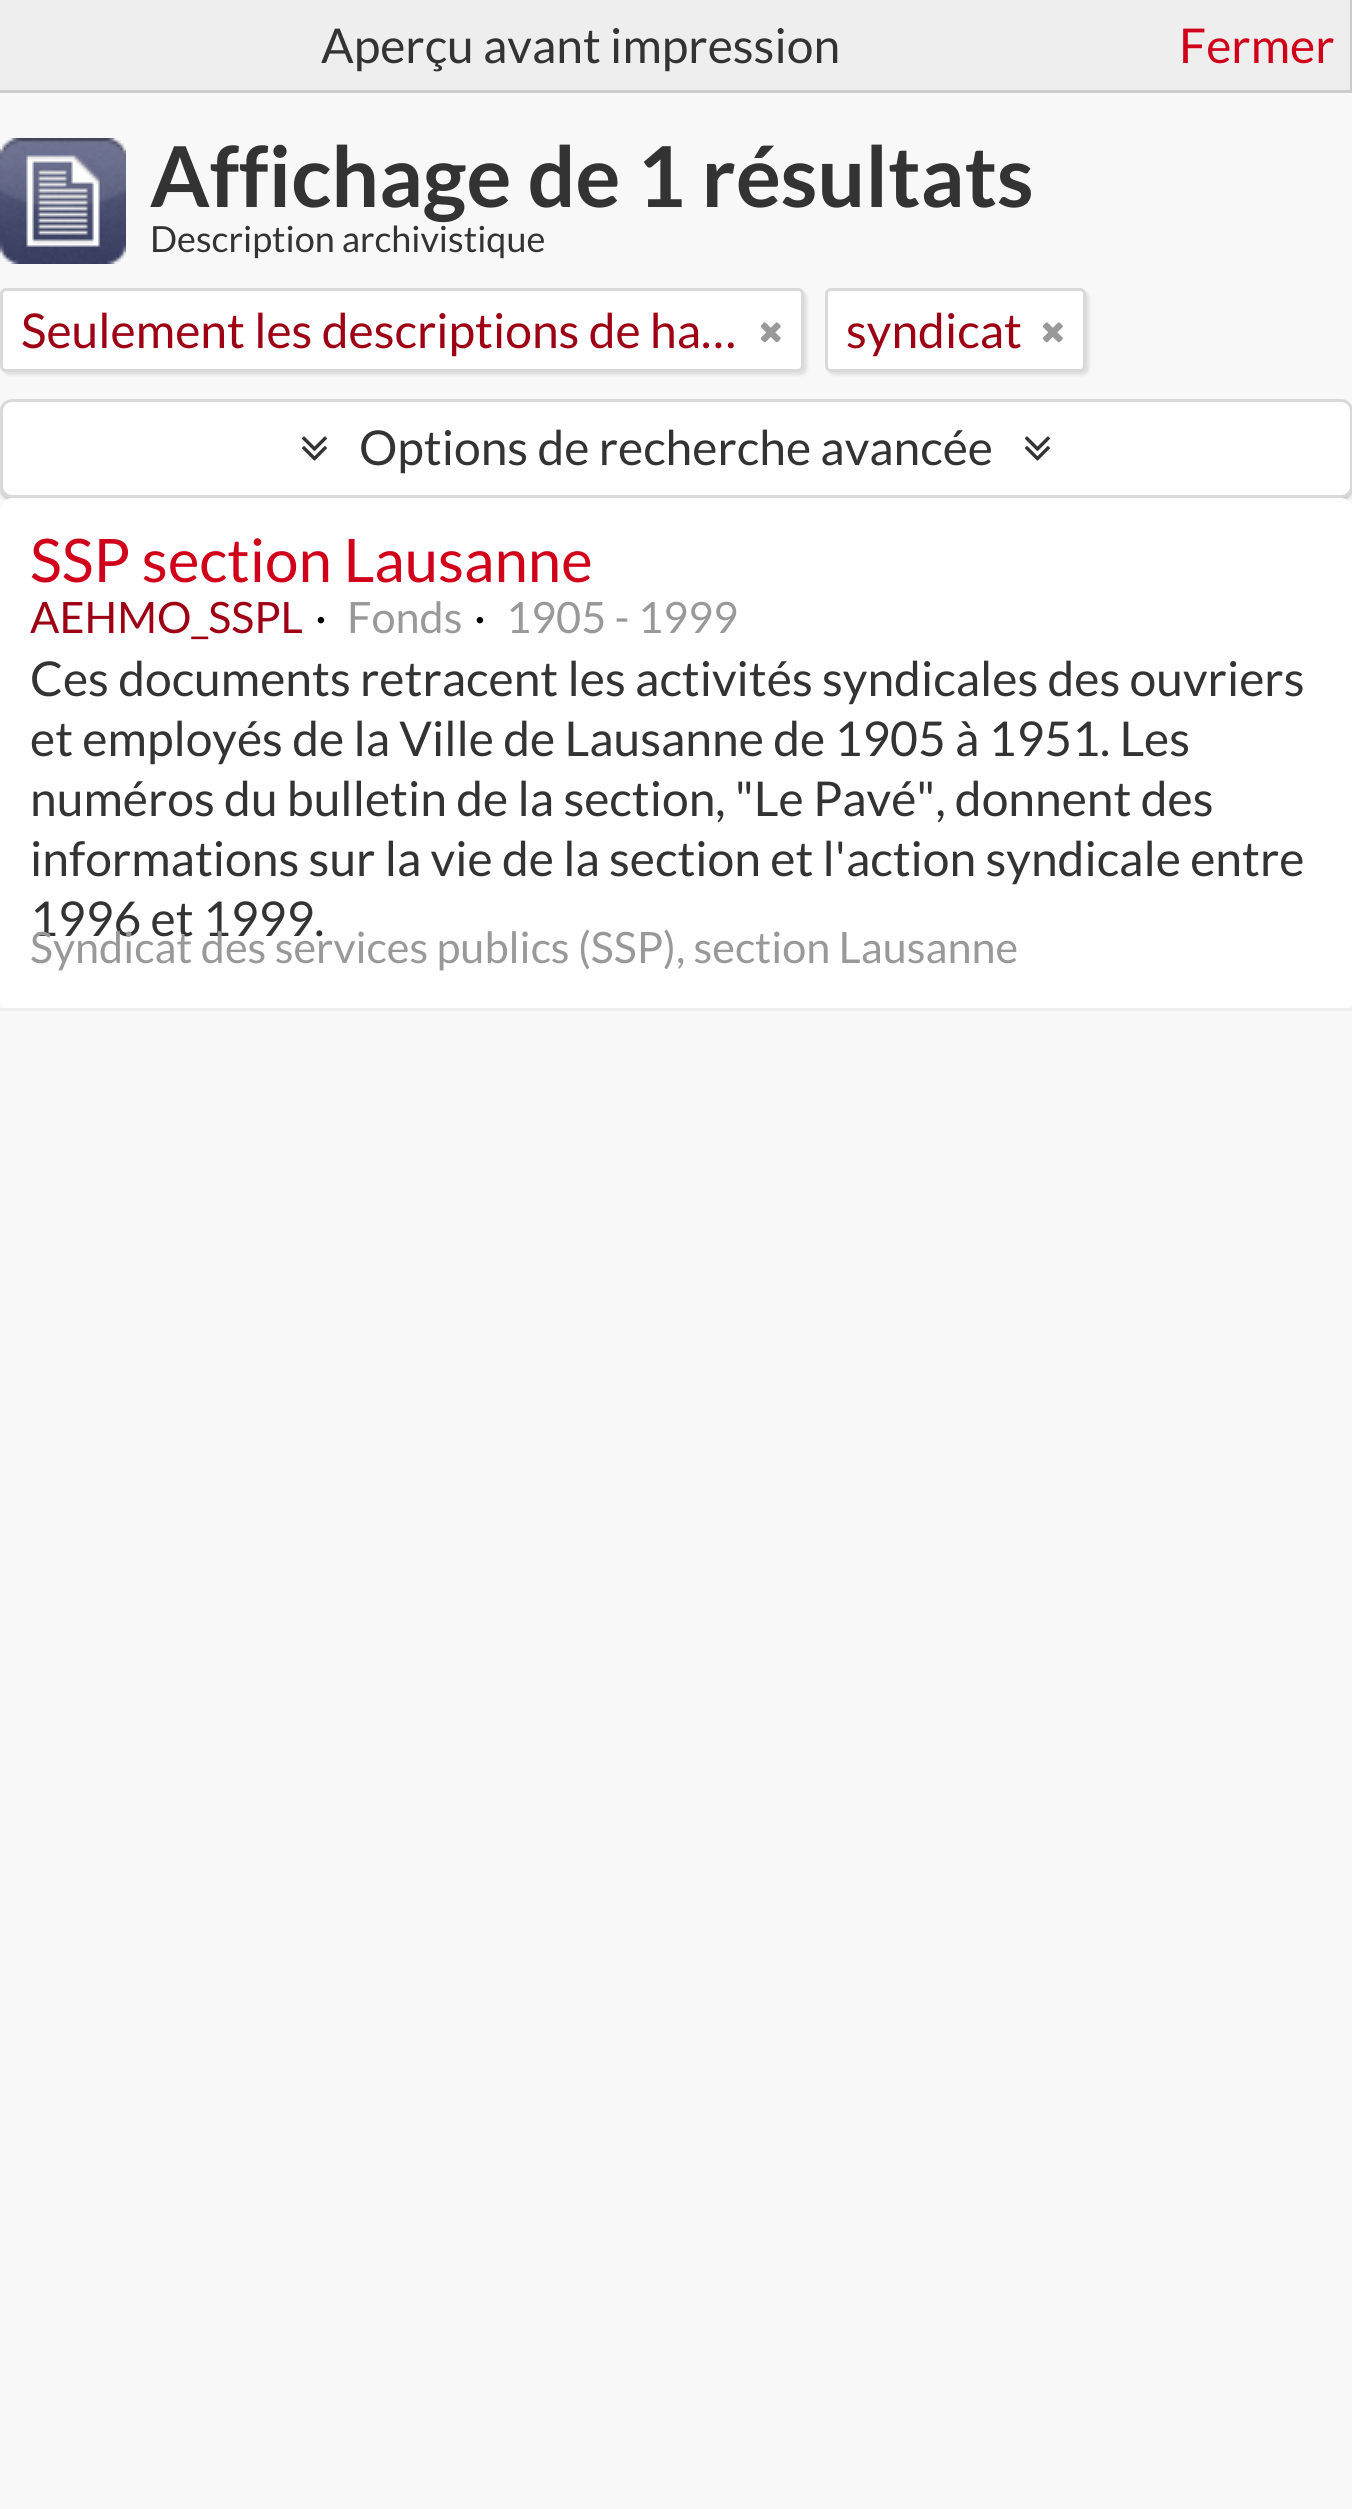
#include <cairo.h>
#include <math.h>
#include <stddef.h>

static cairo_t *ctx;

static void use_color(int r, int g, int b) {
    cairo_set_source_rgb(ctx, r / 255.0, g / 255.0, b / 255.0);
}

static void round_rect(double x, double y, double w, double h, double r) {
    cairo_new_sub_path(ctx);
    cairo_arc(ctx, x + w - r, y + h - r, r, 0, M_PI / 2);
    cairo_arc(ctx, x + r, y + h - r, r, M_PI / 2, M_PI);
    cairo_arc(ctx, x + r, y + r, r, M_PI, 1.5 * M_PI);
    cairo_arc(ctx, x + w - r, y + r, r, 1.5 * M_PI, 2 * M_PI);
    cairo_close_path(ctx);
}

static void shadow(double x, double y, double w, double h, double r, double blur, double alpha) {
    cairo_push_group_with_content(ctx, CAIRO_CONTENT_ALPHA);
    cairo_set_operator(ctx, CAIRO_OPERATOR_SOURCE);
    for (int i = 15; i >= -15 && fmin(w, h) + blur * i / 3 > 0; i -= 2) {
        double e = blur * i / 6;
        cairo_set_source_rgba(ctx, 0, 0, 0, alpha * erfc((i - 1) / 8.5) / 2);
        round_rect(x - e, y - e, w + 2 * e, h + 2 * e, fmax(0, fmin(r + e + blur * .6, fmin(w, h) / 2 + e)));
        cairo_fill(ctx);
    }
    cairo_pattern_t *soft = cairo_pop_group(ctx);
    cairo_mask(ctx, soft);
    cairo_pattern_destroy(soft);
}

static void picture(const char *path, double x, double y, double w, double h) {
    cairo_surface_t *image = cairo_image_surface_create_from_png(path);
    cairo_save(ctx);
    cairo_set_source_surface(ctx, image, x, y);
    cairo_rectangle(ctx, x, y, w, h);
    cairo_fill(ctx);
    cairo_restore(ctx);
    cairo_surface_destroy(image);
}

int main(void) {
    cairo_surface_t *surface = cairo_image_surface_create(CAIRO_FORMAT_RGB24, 1352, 2509);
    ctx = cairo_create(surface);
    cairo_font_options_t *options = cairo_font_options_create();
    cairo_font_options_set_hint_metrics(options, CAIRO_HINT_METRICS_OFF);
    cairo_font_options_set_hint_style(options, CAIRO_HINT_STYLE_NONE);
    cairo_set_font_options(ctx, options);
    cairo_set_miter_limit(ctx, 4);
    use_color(248, 248, 248);
    cairo_paint(ctx);
    use_color(238, 238, 238);
    cairo_rectangle(ctx, 0, 0, 1350, 90);
    cairo_fill(ctx);
    use_color(204, 204, 204);
    cairo_rectangle(ctx, 1350, 0, 2, 93);
    cairo_fill(ctx);
    cairo_rectangle(ctx, 0, 90, 1352, 3);
    cairo_fill(ctx);
    cairo_select_font_face(ctx, "Lato", CAIRO_FONT_SLANT_NORMAL, CAIRO_FONT_WEIGHT_NORMAL);
    cairo_set_font_size(ctx, 48);
    use_color(51, 51, 51);
    cairo_move_to(ctx, 321, 63);
    cairo_show_text(ctx, "Aperçu avant impression");
    use_color(208, 0, 26);
    cairo_move_to(ctx, 1179, 63);
    cairo_show_text(ctx, "Fermer");
    picture("img1.png", 0, 138, 126, 126);
    cairo_select_font_face(ctx, "Lato", CAIRO_FONT_SLANT_NORMAL, CAIRO_FONT_WEIGHT_BOLD);
    cairo_set_font_size(ctx, 84);
    use_color(51, 51, 51);
    cairo_move_to(ctx, 150, 207);
    cairo_show_text(ctx, "Affichage de 1 résultats");
    cairo_select_font_face(ctx, "Lato", CAIRO_FONT_SLANT_NORMAL, CAIRO_FONT_WEIGHT_NORMAL);
    cairo_set_font_size(ctx, 36);
    cairo_move_to(ctx, 150, 252);
    cairo_show_text(ctx, "Description archivistique");
    use_color(0, 0, 0);
    shadow(3, 291, 804, 84, 6, 1.5, 0.1);
    use_color(255, 255, 255);
    round_rect(1.5, 289.5, 801, 81, 4.5);
    cairo_fill_preserve(ctx);
    use_color(217, 217, 217);
    cairo_set_line_width(ctx, 3);
    cairo_stroke(ctx);
    cairo_set_font_size(ctx, 48);
    use_color(157, 0, 20);
    cairo_move_to(ctx, 21, 348);
    cairo_show_text(ctx, "Seulement les descriptions de ha…");
    picture("img2.png", 760, 322, 21, 21);
    use_color(0, 0, 0);
    shadow(828, 291, 261, 84, 6, 1.5, 0.1);
    use_color(255, 255, 255);
    round_rect(826.5, 289.5, 258, 81, 4.5);
    cairo_fill_preserve(ctx);
    use_color(217, 217, 217);
    cairo_stroke(ctx);
    use_color(157, 0, 20);
    cairo_move_to(ctx, 846, 348);
    cairo_show_text(ctx, "syndicat");
    picture("img2.png", 1042, 322, 21, 21);
    use_color(0, 0, 0);
    shadow(0, 402, 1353, 99, 12, 1.5, 0.2);
    use_color(255, 255, 255);
    round_rect(1.5, 400.5, 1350, 96, 10.5);
    cairo_fill_preserve(ctx);
    use_color(217, 217, 217);
    cairo_stroke(ctx);
    picture("img3.png", 302, 436, 25, 25);
    use_color(51, 51, 51);
    cairo_move_to(ctx, 359, 465);
    cairo_show_text(ctx, "Options de recherche avancée");
    picture("img3.png", 1025, 436, 25, 25);
    use_color(255, 255, 255);
    round_rect(0, 498, 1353, 513, 12);
    cairo_fill(ctx);
    use_color(238, 238, 238);
    cairo_rectangle(ctx, 0, 1008, 1352, 3);
    cairo_fill(ctx);
    cairo_set_font_size(ctx, 60);
    use_color(208, 0, 26);
    cairo_move_to(ctx, 30, 582);
    cairo_show_text(ctx, "SSP section Lausanne");
    cairo_set_font_size(ctx, 43.2);
    use_color(157, 0, 20);
    cairo_move_to(ctx, 30, 633);
    cairo_show_text(ctx, "AEHMO_SSPL");
    use_color(0, 0, 0);
    cairo_move_to(ctx, 315, 633);
    cairo_show_text(ctx, "·");
    use_color(153, 153, 153);
    cairo_move_to(ctx, 347, 633);
    cairo_show_text(ctx, "Fonds");
    use_color(0, 0, 0);
    cairo_move_to(ctx, 474, 633);
    cairo_show_text(ctx, "·");
    use_color(153, 153, 153);
    cairo_move_to(ctx, 506, 633);
    cairo_show_text(ctx, "1905 - 1999");
    cairo_set_font_size(ctx, 48);
    use_color(51, 51, 51);
    cairo_move_to(ctx, 30, 696);
    cairo_show_text(ctx, "Ces documents retracent les activités syndicales des ouvriers");
    cairo_move_to(ctx, 30, 756);
    cairo_show_text(ctx, "et employés de la Ville de Lausanne de 1905 à 1951. Les");
    cairo_move_to(ctx, 30, 816);
    cairo_show_text(ctx, "numéros du bulletin de la section, \"Le Pavé\", donnent des");
    cairo_move_to(ctx, 30, 876);
    cairo_show_text(ctx, "informations sur la vie de la section et l'action syndicale entre");
    cairo_move_to(ctx, 30, 936);
    cairo_show_text(ctx, "1996 et 1999.");
    cairo_set_font_size(ctx, 43.2);
    use_color(153, 153, 153);
    cairo_move_to(ctx, 30, 963);
    cairo_show_text(ctx, "Syndicat des services publics (SSP), section Lausanne");
    cairo_surface_write_to_png(surface, "result.png");
    cairo_font_options_destroy(options);
    cairo_destroy(ctx);
    cairo_surface_destroy(surface);
    return 0;
}
